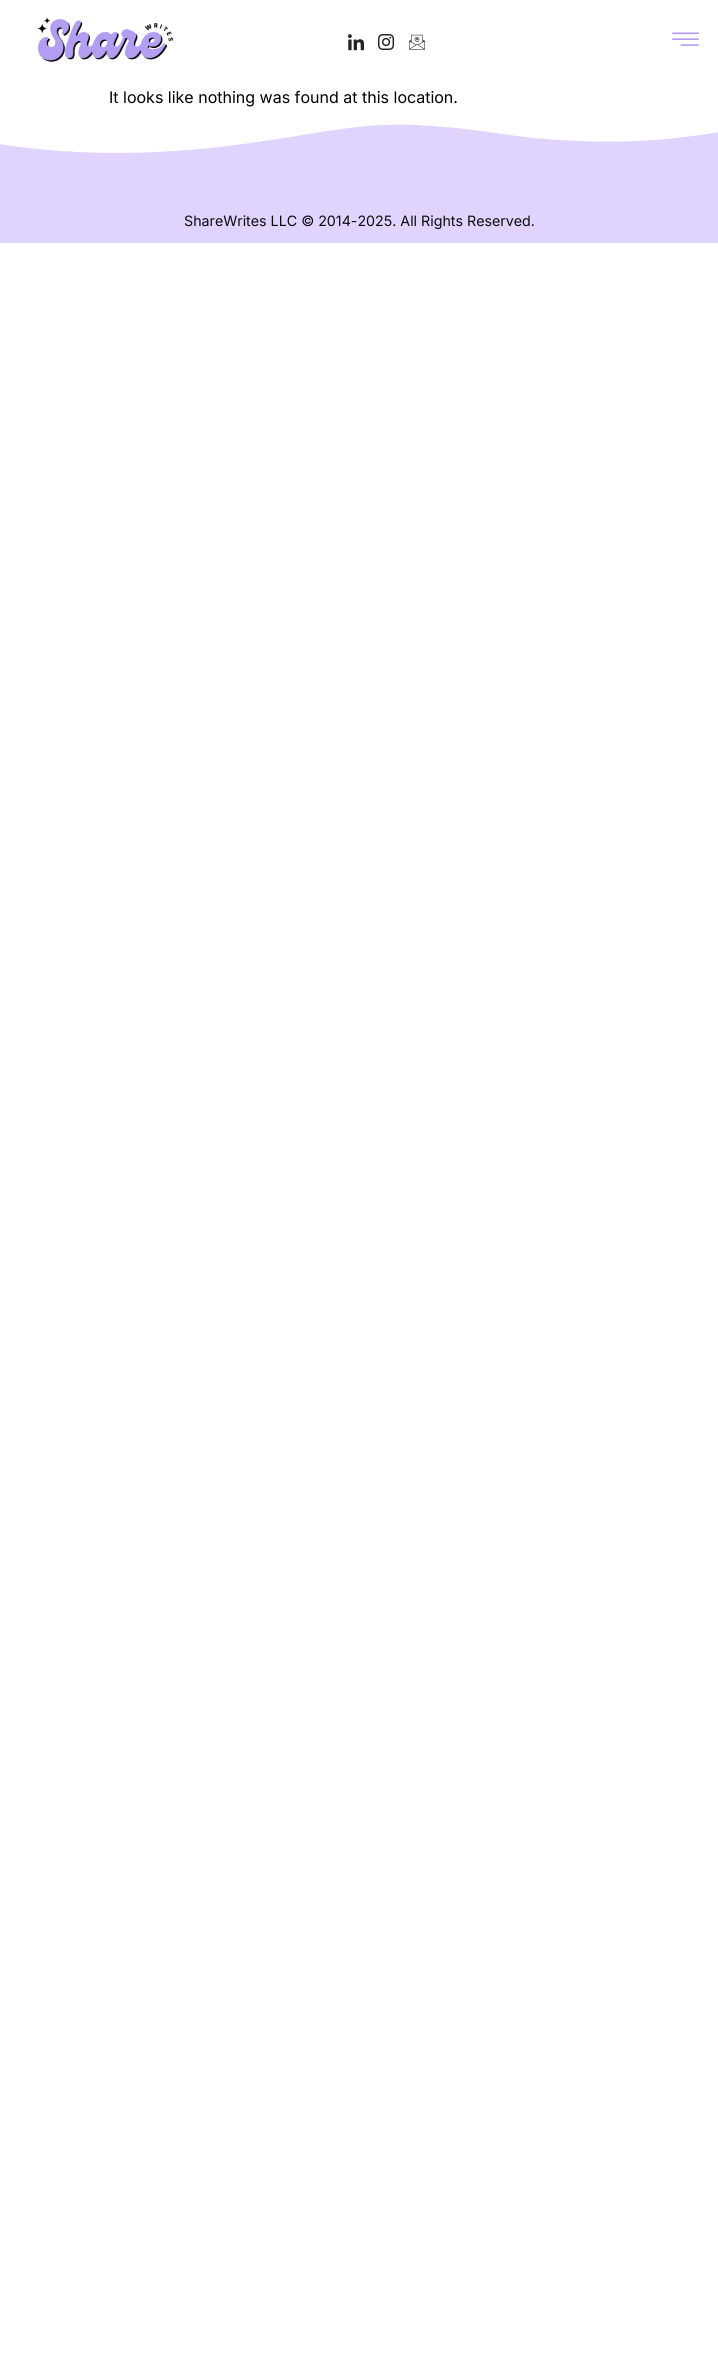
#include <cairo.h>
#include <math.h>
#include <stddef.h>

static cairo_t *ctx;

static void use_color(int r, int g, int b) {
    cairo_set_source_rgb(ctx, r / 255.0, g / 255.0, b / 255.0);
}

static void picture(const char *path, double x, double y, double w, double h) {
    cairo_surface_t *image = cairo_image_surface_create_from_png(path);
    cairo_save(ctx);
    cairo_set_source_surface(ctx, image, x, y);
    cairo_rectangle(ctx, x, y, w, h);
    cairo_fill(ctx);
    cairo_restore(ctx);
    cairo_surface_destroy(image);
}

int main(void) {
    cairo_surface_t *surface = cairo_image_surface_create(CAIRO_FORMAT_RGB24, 718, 2357);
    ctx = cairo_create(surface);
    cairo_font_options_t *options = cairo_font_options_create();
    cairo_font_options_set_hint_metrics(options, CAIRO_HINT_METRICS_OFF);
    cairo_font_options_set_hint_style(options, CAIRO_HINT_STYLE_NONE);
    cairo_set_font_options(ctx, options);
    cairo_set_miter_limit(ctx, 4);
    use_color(255, 255, 255);
    cairo_paint(ctx);
    picture("img1.png", 37, 17, 137, 45);
    picture("img2.png", 348, 34, 16, 17);
    picture("img3.png", 378, 34, 17, 16);
    picture("img4.png", 409, 34, 16, 16);
    picture("img5.png", 672, 32, 27, 14);
    cairo_select_font_face(ctx, "Inter", CAIRO_FONT_SLANT_NORMAL, CAIRO_FONT_WEIGHT_NORMAL);
    cairo_set_font_size(ctx, 16);
    use_color(0, 0, 0);
    cairo_move_to(ctx, 109, 103);
    cairo_show_text(ctx, "It looks like nothing was found at this location.");
    use_color(224, 212, 255);
    cairo_rectangle(ctx, 0, 124, 718, 119);
    cairo_fill(ctx);
    use_color(255, 255, 255);
    cairo_new_path(ctx);
    cairo_move_to(ctx, 415, 125);
    cairo_curve_to(ctx, 359, 122, 305, 136, 250, 143);
    cairo_curve_to(ctx, 168, 155, 81, 157, -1, 144);
    cairo_line_to(ctx, -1, 123);
    cairo_line_to(ctx, 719, 123);
    cairo_line_to(ctx, 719, 132);
    cairo_curve_to(ctx, 702, 135, 685, 137, 668, 139);
    cairo_curve_to(ctx, 623, 143, 577, 142, 532, 138);
    cairo_line_to(ctx, 481, 131);
    cairo_curve_to(ctx, 459, 128, 437, 126, 415, 125);
    cairo_close_path(ctx);
    cairo_fill(ctx);
    cairo_set_font_size(ctx, 14.25);
    use_color(12, 12, 12);
    cairo_move_to(ctx, 184, 226);
    cairo_show_text(ctx, "ShareWrites LLC © 2014-2025. All Rights Reserved.");
    cairo_surface_write_to_png(surface, "result.png");
    cairo_font_options_destroy(options);
    cairo_destroy(ctx);
    cairo_surface_destroy(surface);
    return 0;
}
